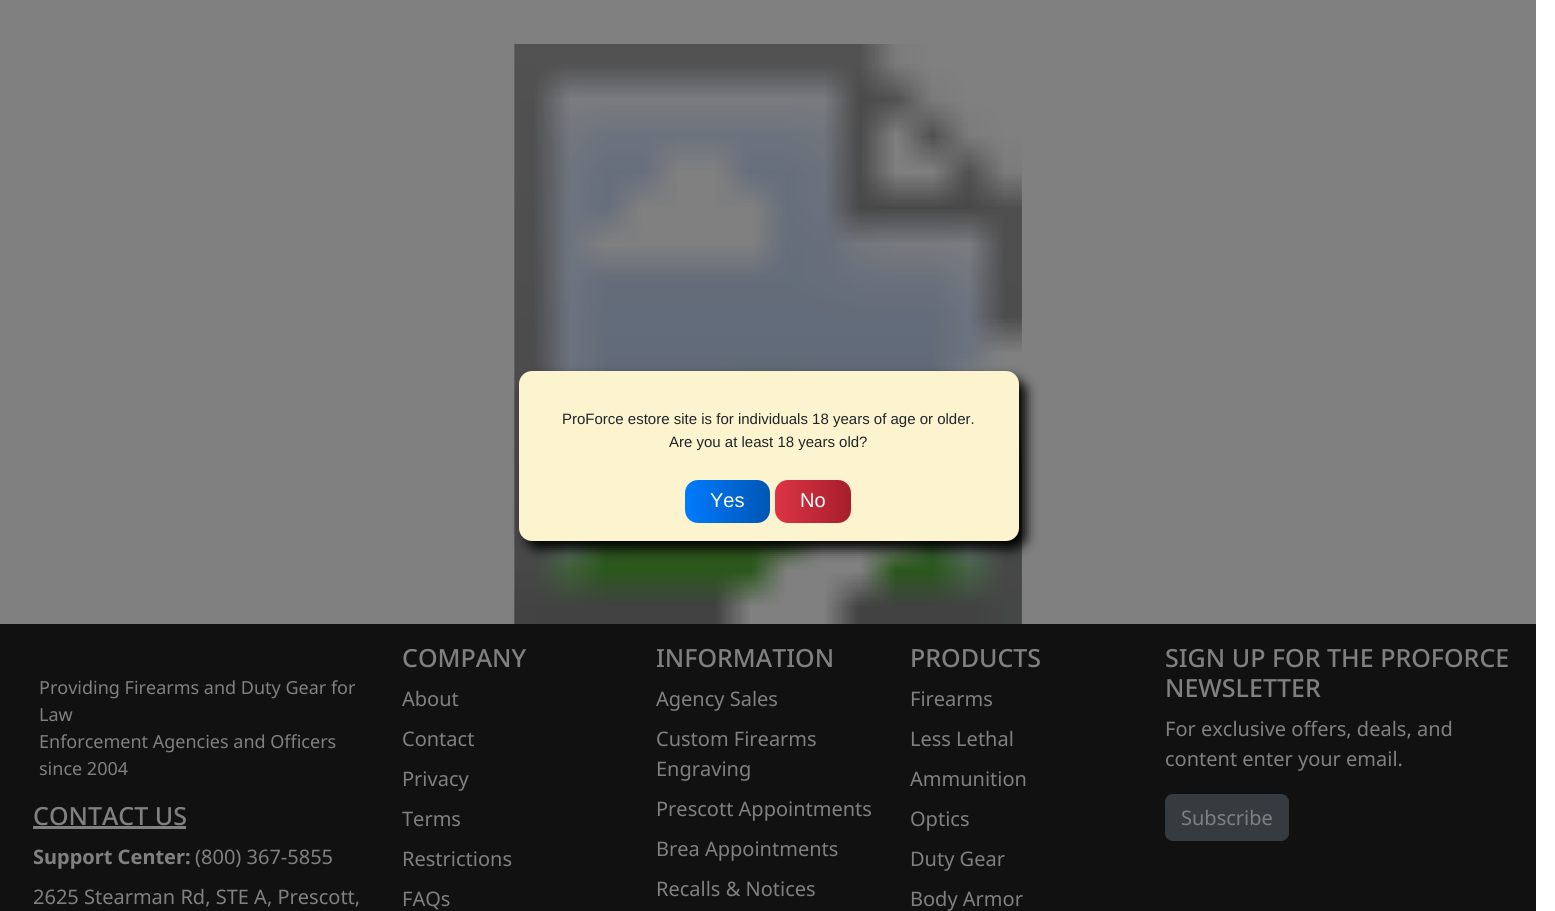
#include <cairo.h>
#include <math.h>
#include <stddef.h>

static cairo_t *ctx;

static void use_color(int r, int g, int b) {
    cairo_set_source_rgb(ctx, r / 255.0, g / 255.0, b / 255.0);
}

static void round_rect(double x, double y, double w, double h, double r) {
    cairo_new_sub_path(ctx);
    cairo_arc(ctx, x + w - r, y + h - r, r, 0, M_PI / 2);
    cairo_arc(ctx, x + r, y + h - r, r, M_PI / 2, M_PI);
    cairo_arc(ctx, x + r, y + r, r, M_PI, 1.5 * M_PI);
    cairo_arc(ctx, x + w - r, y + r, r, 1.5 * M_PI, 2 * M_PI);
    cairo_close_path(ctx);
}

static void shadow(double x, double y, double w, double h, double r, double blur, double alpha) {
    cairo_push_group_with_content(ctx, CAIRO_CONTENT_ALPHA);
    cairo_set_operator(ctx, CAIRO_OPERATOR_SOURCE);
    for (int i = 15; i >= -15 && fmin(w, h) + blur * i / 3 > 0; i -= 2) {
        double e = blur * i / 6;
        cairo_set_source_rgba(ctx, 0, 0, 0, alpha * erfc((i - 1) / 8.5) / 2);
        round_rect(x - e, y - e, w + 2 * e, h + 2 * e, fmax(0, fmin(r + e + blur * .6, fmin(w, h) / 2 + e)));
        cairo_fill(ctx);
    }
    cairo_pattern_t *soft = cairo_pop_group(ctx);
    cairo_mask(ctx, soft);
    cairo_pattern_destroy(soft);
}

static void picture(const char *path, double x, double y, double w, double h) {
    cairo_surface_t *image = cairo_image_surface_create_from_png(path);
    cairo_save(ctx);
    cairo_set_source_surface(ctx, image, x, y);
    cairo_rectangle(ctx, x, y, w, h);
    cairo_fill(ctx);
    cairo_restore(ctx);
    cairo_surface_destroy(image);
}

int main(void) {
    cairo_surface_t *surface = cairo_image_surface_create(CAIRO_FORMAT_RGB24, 1555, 911);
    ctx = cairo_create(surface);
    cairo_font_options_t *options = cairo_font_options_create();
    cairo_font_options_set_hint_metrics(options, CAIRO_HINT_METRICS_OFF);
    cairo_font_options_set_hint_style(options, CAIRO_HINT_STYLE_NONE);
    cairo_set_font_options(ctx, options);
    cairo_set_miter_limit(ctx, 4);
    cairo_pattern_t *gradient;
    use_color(255, 255, 255);
    cairo_paint(ctx);
    use_color(128, 128, 128);
    cairo_rectangle(ctx, 0, 0, 1536, 624);
    cairo_fill(ctx);
    picture("img1.png", 514, 44, 508, 580);
    use_color(0, 0, 0);
    shadow(526, 379, 500, 170, 13, 6, 1);
    use_color(252, 243, 207);
    round_rect(519, 371, 500, 170, 13);
    cairo_fill(ctx);
    cairo_select_font_face(ctx, "Liberation Sans", CAIRO_FONT_SLANT_NORMAL, CAIRO_FONT_WEIGHT_NORMAL);
    cairo_set_font_size(ctx, 15);
    use_color(33, 37, 41);
    cairo_move_to(ctx, 562, 424);
    cairo_show_text(ctx, "ProForce estore site is for individuals 18 years of age or older.");
    cairo_move_to(ctx, 669, 447);
    cairo_show_text(ctx, "Are you at least 18 years old?");
    gradient = cairo_pattern_create_linear(685, 501, 770, 501);
    cairo_pattern_add_color_stop_rgba(gradient, 0, 0, 0.482, 1, 1);
    cairo_pattern_add_color_stop_rgba(gradient, 1, 0, 0.337, 0.702, 1);
    cairo_set_source(ctx, gradient);
    cairo_pattern_destroy(gradient);
    round_rect(685, 480, 85, 43, 13);
    cairo_fill(ctx);
    cairo_set_font_size(ctx, 20);
    use_color(255, 255, 255);
    cairo_move_to(ctx, 710, 507);
    cairo_show_text(ctx, "Yes");
    gradient = cairo_pattern_create_linear(775, 501, 851, 501);
    cairo_pattern_add_color_stop_rgba(gradient, 0, 0.863, 0.208, 0.271, 1);
    cairo_pattern_add_color_stop_rgba(gradient, 1, 0.655, 0.114, 0.165, 1);
    cairo_set_source(ctx, gradient);
    cairo_pattern_destroy(gradient);
    round_rect(775, 480, 76, 43, 13);
    cairo_fill(ctx);
    use_color(255, 255, 255);
    cairo_move_to(ctx, 800, 507);
    cairo_show_text(ctx, "No");
    use_color(17, 17, 17);
    cairo_rectangle(ctx, 0, 624, 1536, 287);
    cairo_fill(ctx);
    cairo_select_font_face(ctx, "Noto Sans", CAIRO_FONT_SLANT_NORMAL, CAIRO_FONT_WEIGHT_NORMAL);
    cairo_set_font_size(ctx, 18);
    use_color(128, 128, 128);
    cairo_move_to(ctx, 39, 694);
    cairo_show_text(ctx, "Providing Firearms and Duty Gear for");
    cairo_move_to(ctx, 39, 721);
    cairo_show_text(ctx, "Law");
    cairo_move_to(ctx, 39, 748);
    cairo_show_text(ctx, "Enforcement Agencies and Officers");
    cairo_move_to(ctx, 39, 775);
    cairo_show_text(ctx, "since 2004");
    cairo_select_font_face(ctx, "Noto Sans Medium", CAIRO_FONT_SLANT_NORMAL, CAIRO_FONT_WEIGHT_NORMAL);
    cairo_set_font_size(ctx, 25);
    cairo_move_to(ctx, 33, 825);
    cairo_show_text(ctx, "CONTACT US");
    cairo_rectangle(ctx, 33, 826, 153, 3);
    cairo_fill(ctx);
    cairo_select_font_face(ctx, "Noto Sans", CAIRO_FONT_SLANT_NORMAL, CAIRO_FONT_WEIGHT_BOLD);
    cairo_set_font_size(ctx, 20);
    cairo_move_to(ctx, 33, 864);
    cairo_show_text(ctx, "Support Center:");
    cairo_select_font_face(ctx, "Noto Sans", CAIRO_FONT_SLANT_NORMAL, CAIRO_FONT_WEIGHT_NORMAL);
    cairo_move_to(ctx, 195, 864);
    cairo_show_text(ctx, "(800) 367-5855");
    cairo_move_to(ctx, 33, 904);
    cairo_show_text(ctx, "2625 Stearman Rd, STE A, Prescott,");
    cairo_select_font_face(ctx, "Noto Sans Medium", CAIRO_FONT_SLANT_NORMAL, CAIRO_FONT_WEIGHT_NORMAL);
    cairo_set_font_size(ctx, 25);
    cairo_move_to(ctx, 402, 667);
    cairo_show_text(ctx, "COMPANY");
    cairo_select_font_face(ctx, "Noto Sans", CAIRO_FONT_SLANT_NORMAL, CAIRO_FONT_WEIGHT_NORMAL);
    cairo_set_font_size(ctx, 20);
    cairo_move_to(ctx, 402, 706);
    cairo_show_text(ctx, "About");
    cairo_move_to(ctx, 402, 746);
    cairo_show_text(ctx, "Contact");
    cairo_move_to(ctx, 402, 786);
    cairo_show_text(ctx, "Privacy");
    cairo_move_to(ctx, 402, 826);
    cairo_show_text(ctx, "Terms");
    cairo_move_to(ctx, 402, 866);
    cairo_show_text(ctx, "Restrictions");
    cairo_move_to(ctx, 402, 906);
    cairo_show_text(ctx, "FAQs");
    cairo_select_font_face(ctx, "Noto Sans Medium", CAIRO_FONT_SLANT_NORMAL, CAIRO_FONT_WEIGHT_NORMAL);
    cairo_set_font_size(ctx, 25);
    cairo_move_to(ctx, 656, 667);
    cairo_show_text(ctx, "INFORMATION");
    cairo_select_font_face(ctx, "Noto Sans", CAIRO_FONT_SLANT_NORMAL, CAIRO_FONT_WEIGHT_NORMAL);
    cairo_set_font_size(ctx, 20);
    cairo_move_to(ctx, 656, 706);
    cairo_show_text(ctx, "Agency Sales");
    cairo_move_to(ctx, 656, 746);
    cairo_show_text(ctx, "Custom Firearms");
    cairo_move_to(ctx, 656, 776);
    cairo_show_text(ctx, "Engraving");
    cairo_move_to(ctx, 656, 816);
    cairo_show_text(ctx, "Prescott Appointments");
    cairo_move_to(ctx, 656, 856);
    cairo_show_text(ctx, "Brea Appointments");
    cairo_move_to(ctx, 656, 896);
    cairo_show_text(ctx, "Recalls & Notices");
    cairo_select_font_face(ctx, "Noto Sans Medium", CAIRO_FONT_SLANT_NORMAL, CAIRO_FONT_WEIGHT_NORMAL);
    cairo_set_font_size(ctx, 25);
    cairo_move_to(ctx, 910, 667);
    cairo_show_text(ctx, "PRODUCTS");
    cairo_select_font_face(ctx, "Noto Sans", CAIRO_FONT_SLANT_NORMAL, CAIRO_FONT_WEIGHT_NORMAL);
    cairo_set_font_size(ctx, 20);
    cairo_move_to(ctx, 910, 706);
    cairo_show_text(ctx, "Firearms");
    cairo_move_to(ctx, 910, 746);
    cairo_show_text(ctx, "Less Lethal");
    cairo_move_to(ctx, 910, 786);
    cairo_show_text(ctx, "Ammunition");
    cairo_move_to(ctx, 910, 826);
    cairo_show_text(ctx, "Optics");
    cairo_move_to(ctx, 910, 866);
    cairo_show_text(ctx, "Duty Gear");
    cairo_move_to(ctx, 910, 906);
    cairo_show_text(ctx, "Body Armor");
    cairo_select_font_face(ctx, "Noto Sans Medium", CAIRO_FONT_SLANT_NORMAL, CAIRO_FONT_WEIGHT_NORMAL);
    cairo_set_font_size(ctx, 25);
    cairo_move_to(ctx, 1165, 667);
    cairo_show_text(ctx, "SIGN UP FOR THE PROFORCE");
    cairo_move_to(ctx, 1165, 697);
    cairo_show_text(ctx, "NEWSLETTER");
    cairo_select_font_face(ctx, "Noto Sans", CAIRO_FONT_SLANT_NORMAL, CAIRO_FONT_WEIGHT_NORMAL);
    cairo_set_font_size(ctx, 20);
    cairo_move_to(ctx, 1165, 736);
    cairo_show_text(ctx, "For exclusive offers, deals, and");
    cairo_move_to(ctx, 1165, 766);
    cairo_show_text(ctx, "content enter your email.");
    use_color(54, 59, 63);
    round_rect(1165.5, 794.5, 123, 46, 7.5);
    cairo_fill_preserve(ctx);
    cairo_set_line_width(ctx, 1);
    cairo_stroke(ctx);
    use_color(128, 128, 128);
    cairo_move_to(ctx, 1181, 825);
    cairo_show_text(ctx, "Subscribe");
    cairo_surface_write_to_png(surface, "result.png");
    cairo_font_options_destroy(options);
    cairo_destroy(ctx);
    cairo_surface_destroy(surface);
    return 0;
}
